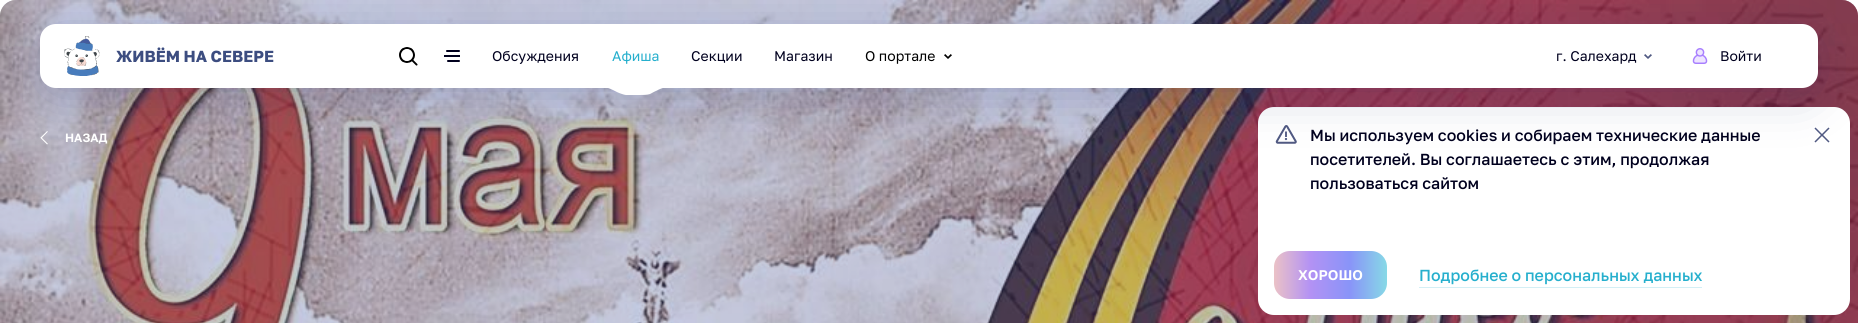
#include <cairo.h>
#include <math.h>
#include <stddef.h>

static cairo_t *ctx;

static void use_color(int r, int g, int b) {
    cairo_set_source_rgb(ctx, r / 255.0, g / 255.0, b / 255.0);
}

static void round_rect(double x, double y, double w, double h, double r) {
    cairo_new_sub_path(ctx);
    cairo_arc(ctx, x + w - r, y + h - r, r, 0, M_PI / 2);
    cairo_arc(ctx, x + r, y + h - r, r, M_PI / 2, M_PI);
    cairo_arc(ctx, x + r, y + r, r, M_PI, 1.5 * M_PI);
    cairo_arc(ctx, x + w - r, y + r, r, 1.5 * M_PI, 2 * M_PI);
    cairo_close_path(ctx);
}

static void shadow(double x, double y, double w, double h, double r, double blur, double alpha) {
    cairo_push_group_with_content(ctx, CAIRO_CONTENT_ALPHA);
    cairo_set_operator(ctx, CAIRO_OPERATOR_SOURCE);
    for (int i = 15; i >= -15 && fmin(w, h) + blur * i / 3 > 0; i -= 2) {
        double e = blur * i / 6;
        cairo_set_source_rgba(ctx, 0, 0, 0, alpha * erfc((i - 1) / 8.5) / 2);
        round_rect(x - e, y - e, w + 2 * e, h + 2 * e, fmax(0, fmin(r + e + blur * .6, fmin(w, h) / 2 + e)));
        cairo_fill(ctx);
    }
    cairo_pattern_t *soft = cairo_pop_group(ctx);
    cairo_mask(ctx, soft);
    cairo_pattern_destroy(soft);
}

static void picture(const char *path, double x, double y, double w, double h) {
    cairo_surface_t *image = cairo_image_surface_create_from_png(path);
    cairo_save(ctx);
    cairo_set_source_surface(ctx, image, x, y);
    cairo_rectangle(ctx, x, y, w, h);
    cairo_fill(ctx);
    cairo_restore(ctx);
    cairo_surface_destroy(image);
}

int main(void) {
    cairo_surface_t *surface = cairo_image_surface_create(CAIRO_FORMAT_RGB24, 1858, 323);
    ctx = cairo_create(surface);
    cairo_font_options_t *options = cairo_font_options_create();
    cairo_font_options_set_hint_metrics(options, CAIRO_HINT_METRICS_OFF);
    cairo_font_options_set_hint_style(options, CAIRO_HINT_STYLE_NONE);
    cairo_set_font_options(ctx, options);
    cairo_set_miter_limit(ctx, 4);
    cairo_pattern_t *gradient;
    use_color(255, 255, 255);
    cairo_paint(ctx);
    use_color(225, 228, 241);
    round_rect(0, 0, 1858, 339, 16);
    cairo_fill(ctx);
    picture("img6.png", 0, 0, 1858, 323);
    cairo_set_source_rgba(ctx, 0.247, 0.341, 0.729, 0.3);
    round_rect(0, 0, 1858, 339, 16);
    cairo_fill(ctx);
    picture("img7.png", 40, 131, 8, 14);
    use_color(6, 6, 36);
    shadow(1258, 111, 592, 208, 16, 40, 0.1);
    use_color(255, 255, 255);
    round_rect(1258, 107, 592, 208, 16);
    cairo_fill(ctx);
    picture("img8.png", 1275, 125, 22, 19);
    picture("img9.png", 1814, 127, 16, 16);
    use_color(0, 16, 94);
    shadow(40, 32, 1778, 64, 16, 24, 0.2);
    use_color(255, 255, 255);
    round_rect(40, 24, 1778, 64, 16);
    cairo_fill(ctx);
    picture("img1.png", 64, 36, 36, 40);
    cairo_select_font_face(ctx, "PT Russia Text", CAIRO_FONT_SLANT_NORMAL, CAIRO_FONT_WEIGHT_BOLD);
    cairo_set_font_size(ctx, 16);
    use_color(60, 77, 128);
    cairo_move_to(ctx, 116, 62);
    cairo_show_text(ctx, "ЖИВЁМ НА СЕВЕРЕ");
    picture("img2.png", 399, 47, 19, 19);
    use_color(0, 0, 30);
    round_rect(446, 50, 14, 2, 1);
    cairo_fill(ctx);
    cairo_rectangle(ctx, 444, 55, 16, 2);
    cairo_fill(ctx);
    round_rect(447, 60, 13, 2, 1);
    cairo_fill(ctx);
    cairo_select_font_face(ctx, "PT Russia Text", CAIRO_FONT_SLANT_NORMAL, CAIRO_FONT_WEIGHT_NORMAL);
    cairo_set_font_size(ctx, 14);
    cairo_move_to(ctx, 492, 61);
    cairo_show_text(ctx, "Обсуждения");
    use_color(38, 175, 205);
    cairo_move_to(ctx, 612, 61);
    cairo_show_text(ctx, "Афиша");
    cairo_save(ctx);
    cairo_rectangle(ctx, 602, 87, 67, 8);
    cairo_clip(ctx);
    use_color(255, 255, 255);
    cairo_new_path(ctx);
    cairo_move_to(ctx, 602, 87);
    cairo_line_to(ctx, 669, 87);
    cairo_curve_to(ctx, 662, 87, 656, 91, 650, 94);
    cairo_curve_to(ctx, 647, 95, 643, 95, 639, 95);
    cairo_curve_to(ctx, 633, 95, 627, 96, 622, 94);
    cairo_curve_to(ctx, 615, 92, 610, 87, 602, 87);
    cairo_close_path(ctx);
    cairo_fill(ctx);
    cairo_restore(ctx);
    use_color(0, 0, 30);
    cairo_move_to(ctx, 691, 61);
    cairo_show_text(ctx, "Секции");
    cairo_move_to(ctx, 774, 61);
    cairo_show_text(ctx, "Магазин");
    use_color(0, 0, 0);
    cairo_move_to(ctx, 865, 61);
    cairo_show_text(ctx, "О портале");
    picture("img3.png", 944, 54, 8, 5);
    use_color(0, 0, 30);
    cairo_move_to(ctx, 1556, 61);
    cairo_show_text(ctx, "г. Салехард");
    picture("img4.png", 1644, 54, 8, 5);
    picture("img5.png", 1692, 48, 16, 16);
    cairo_move_to(ctx, 1720, 61);
    cairo_show_text(ctx, "Войти");
    cairo_select_font_face(ctx, "PT Russia Text SemiBold", CAIRO_FONT_SLANT_NORMAL, CAIRO_FONT_WEIGHT_NORMAL);
    cairo_set_font_size(ctx, 12);
    use_color(255, 255, 255);
    cairo_move_to(ctx, 65, 142);
    cairo_show_text(ctx, "НАЗАД");
    cairo_select_font_face(ctx, "PT Russia Text Medium", CAIRO_FONT_SLANT_NORMAL, CAIRO_FONT_WEIGHT_NORMAL);
    cairo_set_font_size(ctx, 16);
    use_color(0, 0, 30);
    cairo_move_to(ctx, 1310, 141);
    cairo_show_text(ctx, "Мы используем cookies и собираем технические данные");
    cairo_move_to(ctx, 1310, 165);
    cairo_show_text(ctx, "посетителей. Вы соглашаетесь с этим, продолжая");
    cairo_move_to(ctx, 1310, 189);
    cairo_show_text(ctx, "пользоваться сайтом");
    gradient = cairo_pattern_create_linear(1387, 275, 1274, 275);
    cairo_pattern_add_color_stop_rgba(gradient, 0, 0.529, 0.851, 0.902, 1);
    cairo_pattern_add_color_stop_rgba(gradient, 0.33, 0.537, 0.58, 0.973, 1);
    cairo_pattern_add_color_stop_rgba(gradient, 0.68, 0.702, 0.573, 0.957, 1);
    cairo_pattern_add_color_stop_rgba(gradient, 1, 0.922, 0.761, 0.776, 1);
    cairo_set_source(ctx, gradient);
    cairo_pattern_destroy(gradient);
    round_rect(1274, 251, 113, 48, 16);
    cairo_fill(ctx);
    cairo_select_font_face(ctx, "PT Russia Text SemiBold", CAIRO_FONT_SLANT_NORMAL, CAIRO_FONT_WEIGHT_NORMAL);
    cairo_set_font_size(ctx, 14);
    use_color(255, 255, 255);
    cairo_move_to(ctx, 1298, 280);
    cairo_show_text(ctx, "ХОРОШО");
    use_color(212, 239, 245);
    cairo_rectangle(ctx, 1419, 287, 283, 1);
    cairo_fill(ctx);
    cairo_select_font_face(ctx, "PT Russia Text Medium", CAIRO_FONT_SLANT_NORMAL, CAIRO_FONT_WEIGHT_NORMAL);
    cairo_set_font_size(ctx, 16);
    use_color(38, 175, 205);
    cairo_move_to(ctx, 1419, 281);
    cairo_show_text(ctx, "Подробнее о персональных данных");
    cairo_surface_write_to_png(surface, "result.png");
    cairo_font_options_destroy(options);
    cairo_destroy(ctx);
    cairo_surface_destroy(surface);
    return 0;
}
